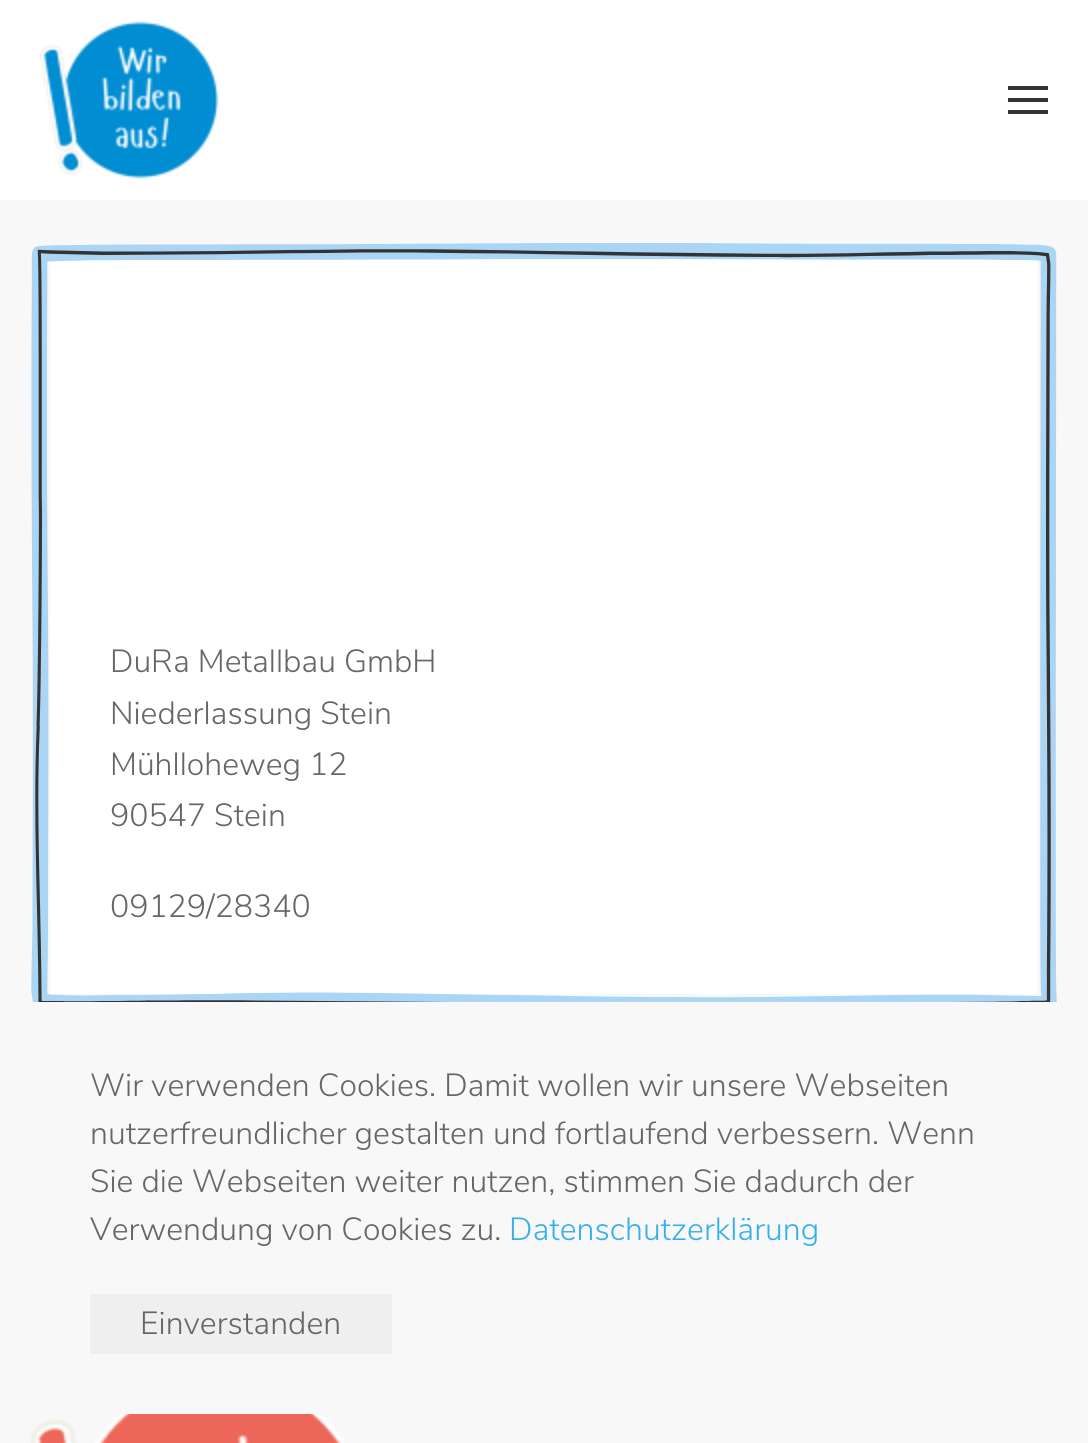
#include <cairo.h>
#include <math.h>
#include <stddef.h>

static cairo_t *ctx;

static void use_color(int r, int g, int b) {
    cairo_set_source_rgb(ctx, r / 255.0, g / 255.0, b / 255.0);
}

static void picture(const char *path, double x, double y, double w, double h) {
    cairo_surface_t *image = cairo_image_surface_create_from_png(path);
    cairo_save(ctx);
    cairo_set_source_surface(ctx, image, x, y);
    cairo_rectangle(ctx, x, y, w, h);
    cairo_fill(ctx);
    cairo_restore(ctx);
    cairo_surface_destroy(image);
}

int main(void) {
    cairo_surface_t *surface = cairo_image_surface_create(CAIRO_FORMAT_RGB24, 1088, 1443);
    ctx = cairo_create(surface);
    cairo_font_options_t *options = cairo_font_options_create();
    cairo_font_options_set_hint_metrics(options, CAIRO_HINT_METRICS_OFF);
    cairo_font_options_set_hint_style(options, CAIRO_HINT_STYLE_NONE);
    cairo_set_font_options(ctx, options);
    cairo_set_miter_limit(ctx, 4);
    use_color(255, 255, 255);
    cairo_paint(ctx);
    picture("img1.png", 40, 21, 179, 158);
    use_color(51, 51, 51);
    cairo_rectangle(ctx, 1008, 86, 40, 4);
    cairo_fill(ctx);
    cairo_rectangle(ctx, 1008, 98, 40, 4);
    cairo_fill(ctx);
    cairo_rectangle(ctx, 1008, 110, 40, 4);
    cairo_fill(ctx);
    use_color(248, 248, 248);
    cairo_rectangle(ctx, 0, 200, 1088, 1243);
    cairo_fill(ctx);
    use_color(255, 255, 255);
    cairo_rectangle(ctx, 50, 260, 988, 734);
    cairo_fill(ctx);
    picture("img2.png", 31, 243, 1026, 759);
    cairo_select_font_face(ctx, "Nunito Sans Light", CAIRO_FONT_SLANT_NORMAL, CAIRO_FONT_WEIGHT_NORMAL);
    cairo_set_font_size(ctx, 32);
    use_color(102, 102, 102);
    cairo_move_to(ctx, 110, 672);
    cairo_show_text(ctx, "DuRa Metallbau GmbH");
    cairo_move_to(ctx, 110, 724);
    cairo_show_text(ctx, "Niederlassung Stein");
    cairo_move_to(ctx, 110, 775);
    cairo_show_text(ctx, "Mühlloheweg 12");
    cairo_move_to(ctx, 110, 826);
    cairo_show_text(ctx, "90547 Stein");
    cairo_move_to(ctx, 110, 917);
    cairo_show_text(ctx, "09129/28340");
    picture("img3.png", 30, 1414, 314, 29);
    cairo_move_to(ctx, 90, 1096);
    cairo_show_text(ctx, "Wir verwenden Cookies. Damit wollen wir unsere Webseiten");
    cairo_move_to(ctx, 90, 1144);
    cairo_show_text(ctx, "nutzerfreundlicher gestalten und fortlaufend verbessern. Wenn");
    cairo_move_to(ctx, 90, 1192);
    cairo_show_text(ctx, "Sie die Webseiten weiter nutzen, stimmen Sie dadurch der");
    cairo_move_to(ctx, 90, 1240);
    cairo_show_text(ctx, "Verwendung von Cookies zu.");
    use_color(54, 175, 235);
    cairo_move_to(ctx, 509, 1240);
    cairo_show_text(ctx, "Datenschutzerklärung");
    use_color(239, 239, 239);
    cairo_rectangle(ctx, 90, 1294, 302, 60);
    cairo_fill(ctx);
    use_color(102, 102, 102);
    cairo_move_to(ctx, 140, 1334);
    cairo_show_text(ctx, "Einverstanden");
    cairo_surface_write_to_png(surface, "result.png");
    cairo_font_options_destroy(options);
    cairo_destroy(ctx);
    cairo_surface_destroy(surface);
    return 0;
}
